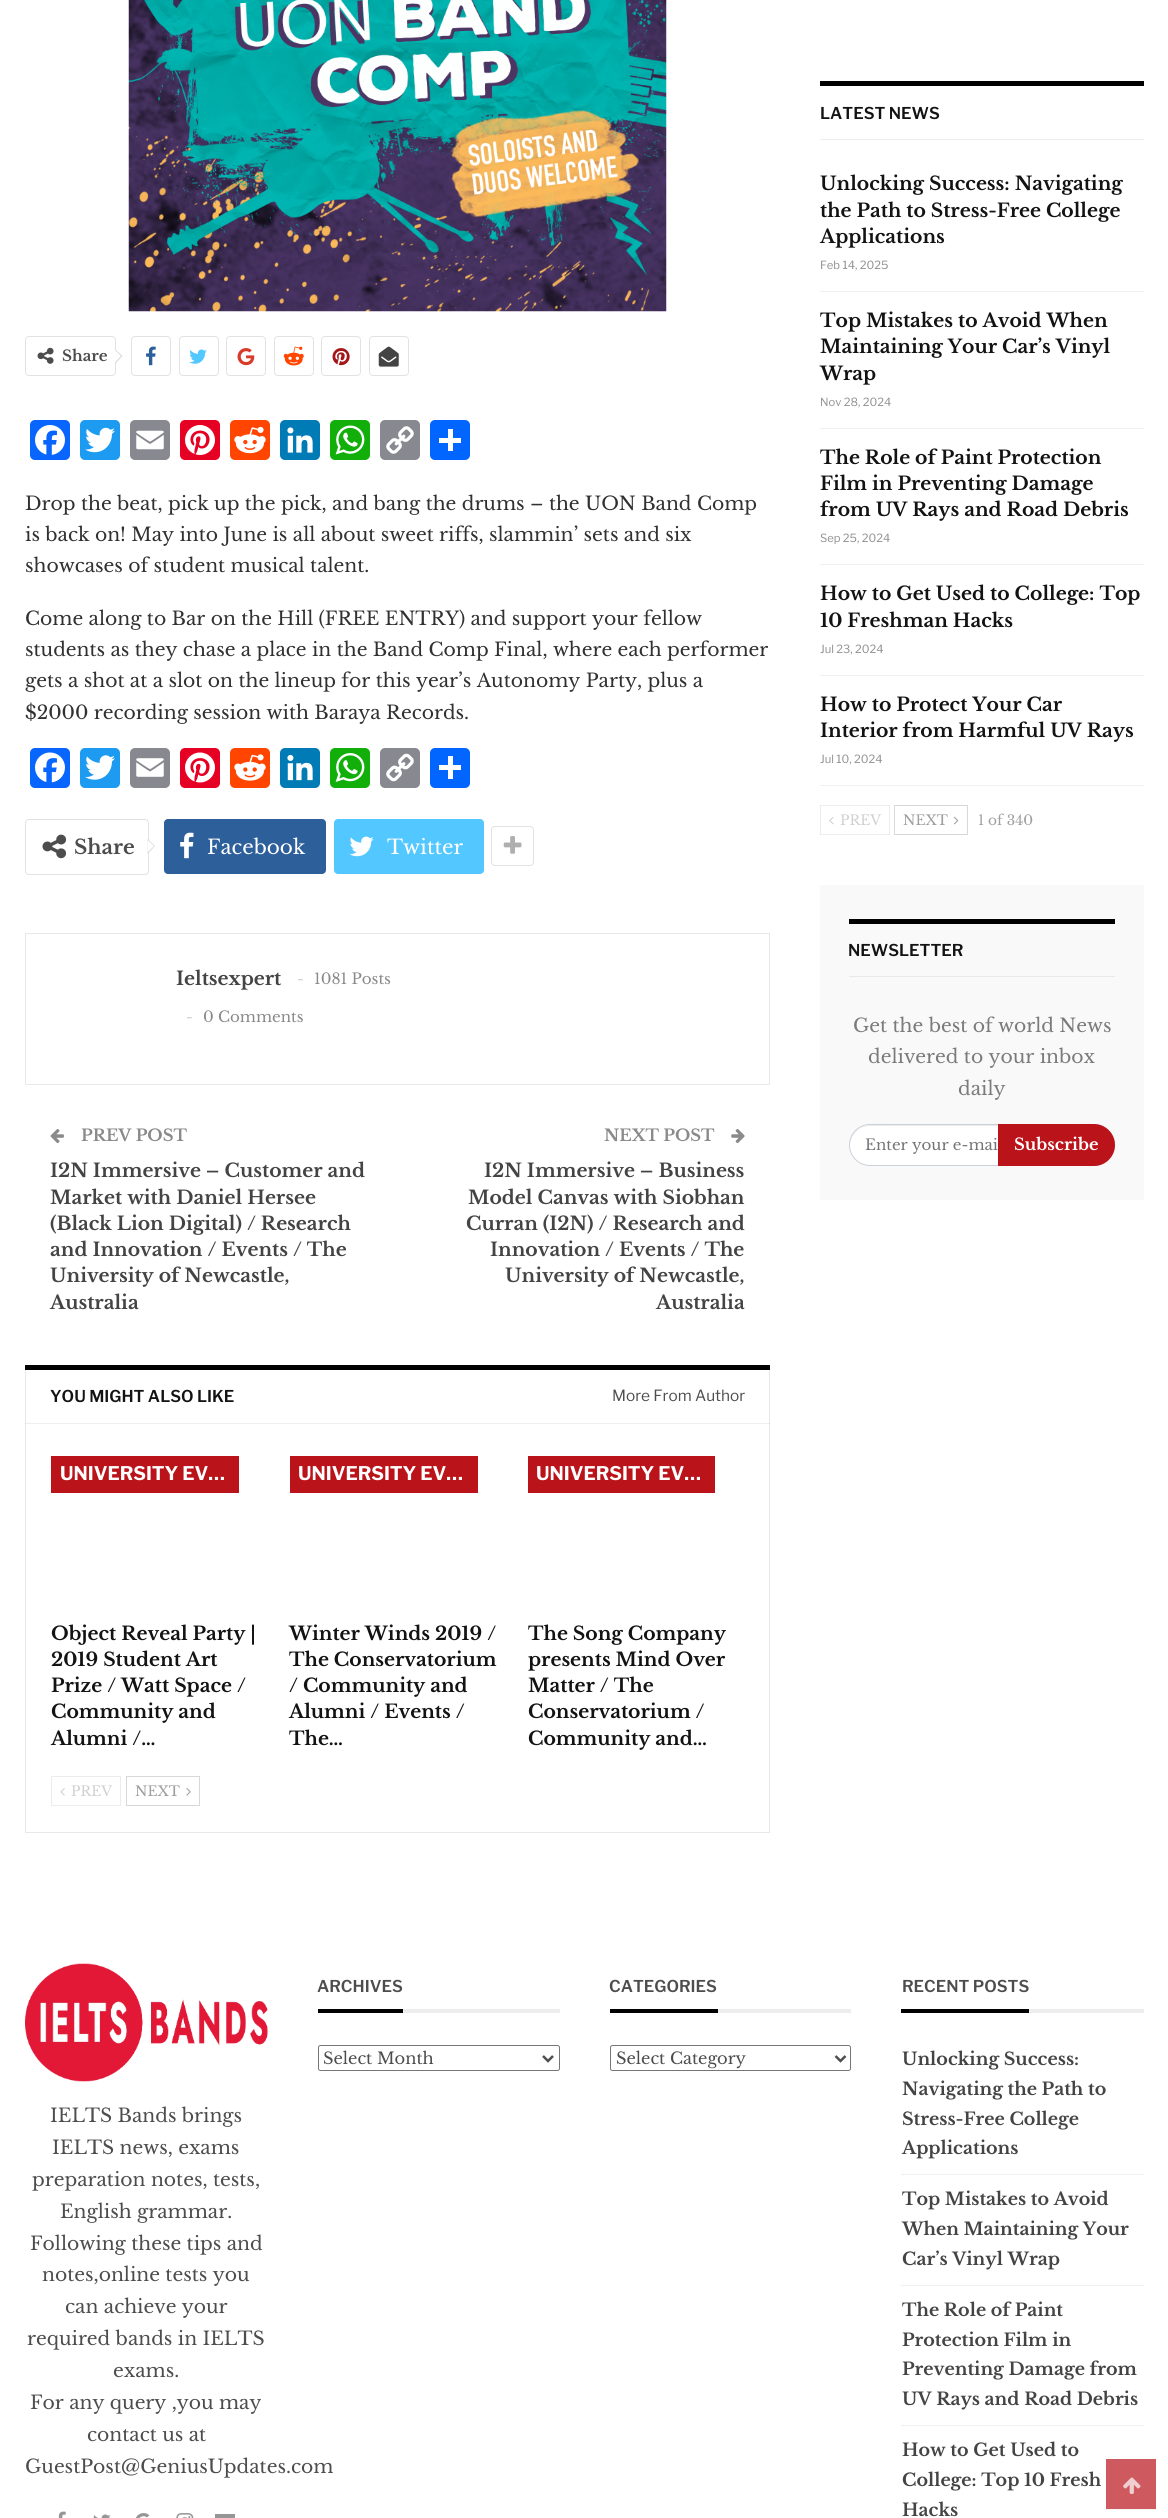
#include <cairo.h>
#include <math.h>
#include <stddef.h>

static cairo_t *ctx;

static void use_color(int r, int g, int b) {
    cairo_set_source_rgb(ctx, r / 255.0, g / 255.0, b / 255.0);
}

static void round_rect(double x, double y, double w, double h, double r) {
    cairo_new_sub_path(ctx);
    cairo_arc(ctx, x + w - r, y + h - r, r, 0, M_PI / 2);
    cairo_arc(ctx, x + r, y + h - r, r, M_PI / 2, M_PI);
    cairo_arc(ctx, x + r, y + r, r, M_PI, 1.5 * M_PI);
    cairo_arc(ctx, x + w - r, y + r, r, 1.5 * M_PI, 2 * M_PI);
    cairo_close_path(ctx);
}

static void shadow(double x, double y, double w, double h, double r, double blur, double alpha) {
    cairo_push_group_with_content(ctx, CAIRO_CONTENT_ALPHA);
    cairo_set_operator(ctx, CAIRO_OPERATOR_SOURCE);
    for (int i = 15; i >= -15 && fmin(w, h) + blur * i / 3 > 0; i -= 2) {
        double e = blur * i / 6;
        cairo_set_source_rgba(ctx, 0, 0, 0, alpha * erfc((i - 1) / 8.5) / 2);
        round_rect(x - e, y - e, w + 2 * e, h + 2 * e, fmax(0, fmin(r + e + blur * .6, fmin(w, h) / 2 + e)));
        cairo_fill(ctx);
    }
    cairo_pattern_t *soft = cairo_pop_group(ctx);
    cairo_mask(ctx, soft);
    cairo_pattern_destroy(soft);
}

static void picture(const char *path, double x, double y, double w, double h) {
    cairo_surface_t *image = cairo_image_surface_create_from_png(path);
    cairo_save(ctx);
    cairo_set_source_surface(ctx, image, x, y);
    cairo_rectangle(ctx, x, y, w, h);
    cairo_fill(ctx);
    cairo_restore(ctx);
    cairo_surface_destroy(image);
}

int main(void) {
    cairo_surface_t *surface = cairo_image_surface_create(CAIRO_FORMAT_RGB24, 1168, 2518);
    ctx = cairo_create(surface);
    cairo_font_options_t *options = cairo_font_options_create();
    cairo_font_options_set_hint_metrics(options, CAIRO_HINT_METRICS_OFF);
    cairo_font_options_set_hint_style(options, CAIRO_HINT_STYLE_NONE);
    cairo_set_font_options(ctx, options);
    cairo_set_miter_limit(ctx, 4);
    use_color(255, 255, 255);
    cairo_paint(ctx);
    picture("img1.png", 128, 0, 539, 312);
    round_rect(25.5, 336.5, 90, 39, 3.5);
    use_color(226, 226, 226);
    cairo_set_line_width(ctx, 1);
    cairo_stroke(ctx);
    picture("img2.png", 37, 347, 17, 17);
    cairo_select_font_face(ctx, "Libre Baskerville", CAIRO_FONT_SLANT_NORMAL, CAIRO_FONT_WEIGHT_BOLD);
    cairo_set_font_size(ctx, 15);
    use_color(77, 77, 77);
    cairo_move_to(ctx, 62, 361);
    cairo_show_text(ctx, "Share");
    use_color(215, 215, 215);
    cairo_new_path(ctx);
    cairo_move_to(ctx, 115, 364);
    cairo_line_to(ctx, 115, 349);
    cairo_line_to(ctx, 122.5, 356);
    cairo_close_path(ctx);
    cairo_fill(ctx);
    use_color(255, 255, 255);
    cairo_new_path(ctx);
    cairo_move_to(ctx, 115, 362.5);
    cairo_line_to(ctx, 115, 350);
    cairo_line_to(ctx, 121, 356);
    cairo_close_path(ctx);
    cairo_fill(ctx);
    round_rect(131.5, 336.5, 39, 39, 3.5);
    use_color(226, 226, 226);
    cairo_stroke(ctx);
    picture("img3.png", 146, 346, 10, 20);
    round_rect(179.5, 336.5, 39, 39, 3.5);
    cairo_stroke(ctx);
    picture("img4.png", 189, 349, 18, 15);
    round_rect(226.5, 336.5, 39, 39, 3.5);
    cairo_stroke(ctx);
    picture("img5.png", 237, 348, 18, 18);
    round_rect(274.5, 336.5, 39, 39, 3.5);
    cairo_stroke(ctx);
    picture("img6.png", 283, 346, 21, 20);
    round_rect(321.5, 336.5, 39, 39, 3.5);
    cairo_stroke(ctx);
    picture("img7.png", 332, 348, 18, 18);
    round_rect(369.5, 336.5, 39, 39, 3.5);
    cairo_stroke(ctx);
    picture("img8.png", 378, 346, 21, 21);
    use_color(8, 102, 255);
    round_rect(30, 420, 40, 40, 5);
    cairo_fill(ctx);
    picture("img9.png", 35, 425, 30, 30);
    use_color(29, 155, 240);
    round_rect(80, 420, 40, 40, 5);
    cairo_fill(ctx);
    picture("img10.png", 85, 427, 30, 26);
    use_color(136, 137, 144);
    round_rect(130, 420, 40, 40, 5);
    cairo_fill(ctx);
    picture("img11.png", 136, 430, 28, 20);
    use_color(230, 0, 35);
    round_rect(180, 420, 40, 40, 5);
    cairo_fill(ctx);
    picture("img12.png", 185, 425, 30, 30);
    use_color(255, 69, 0);
    round_rect(230, 420, 40, 40, 5);
    cairo_fill(ctx);
    picture("img13.png", 234, 426, 32, 28);
    use_color(0, 123, 181);
    round_rect(280, 420, 40, 40, 5);
    cairo_fill(ctx);
    picture("img14.png", 287, 427, 26, 26);
    use_color(18, 175, 10);
    round_rect(330, 420, 40, 40, 5);
    cairo_fill(ctx);
    picture("img15.png", 335, 425, 30, 30);
    use_color(136, 137, 144);
    round_rect(380, 420, 40, 40, 5);
    cairo_fill(ctx);
    picture("img16.png", 386, 426, 28, 28);
    use_color(1, 102, 255);
    round_rect(430, 420, 40, 40, 5);
    cairo_fill(ctx);
    use_color(255, 255, 255);
    cairo_rectangle(ctx, 448, 429, 5, 22);
    cairo_fill(ctx);
    cairo_rectangle(ctx, 439, 438, 22, 5);
    cairo_fill(ctx);
    cairo_select_font_face(ctx, "Libre Baskerville", CAIRO_FONT_SLANT_NORMAL, CAIRO_FONT_WEIGHT_NORMAL);
    cairo_set_font_size(ctx, 18.75);
    use_color(49, 49, 49);
    cairo_move_to(ctx, 25, 510);
    cairo_show_text(ctx, "Drop the beat, pick up the pick, and bang the drums – the UON Band Comp");
    cairo_move_to(ctx, 25, 541);
    cairo_show_text(ctx, "is back on! May into June is all about sweet riffs, slammin’ sets and six");
    cairo_move_to(ctx, 25, 572);
    cairo_show_text(ctx, "showcases of student musical talent.");
    cairo_move_to(ctx, 25, 625);
    cairo_show_text(ctx, "Come along to Bar on the Hill (FREE ENTRY) and support your fellow");
    cairo_move_to(ctx, 25, 656);
    cairo_show_text(ctx, "students as they chase a place in the Band Comp Final, where each performer");
    cairo_move_to(ctx, 25, 687);
    cairo_show_text(ctx, "gets a shot at a slot on the lineup for this year’s Autonomy Party, plus a");
    cairo_move_to(ctx, 25, 719);
    cairo_show_text(ctx, "$2000 recording session with Baraya Records.");
    use_color(8, 102, 255);
    round_rect(30, 748, 40, 40, 5);
    cairo_fill(ctx);
    picture("img17.png", 35, 752, 30, 31);
    use_color(29, 155, 240);
    round_rect(80, 748, 40, 40, 5);
    cairo_fill(ctx);
    picture("img18.png", 85, 755, 30, 25);
    use_color(136, 137, 144);
    round_rect(130, 748, 40, 40, 5);
    cairo_fill(ctx);
    picture("img19.png", 136, 758, 28, 19);
    use_color(230, 0, 35);
    round_rect(180, 748, 40, 40, 5);
    cairo_fill(ctx);
    picture("img20.png", 185, 752, 30, 31);
    use_color(255, 69, 0);
    round_rect(230, 748, 40, 40, 5);
    cairo_fill(ctx);
    picture("img21.png", 234, 754, 32, 27);
    use_color(0, 123, 181);
    round_rect(280, 748, 40, 40, 5);
    cairo_fill(ctx);
    picture("img22.png", 287, 754, 26, 27);
    use_color(18, 175, 10);
    round_rect(330, 748, 40, 40, 5);
    cairo_fill(ctx);
    picture("img23.png", 335, 753, 30, 29);
    use_color(136, 137, 144);
    round_rect(380, 748, 40, 40, 5);
    cairo_fill(ctx);
    picture("img24.png", 386, 753, 28, 29);
    use_color(1, 102, 255);
    round_rect(430, 748, 40, 40, 5);
    cairo_fill(ctx);
    use_color(255, 255, 255);
    cairo_rectangle(ctx, 448, 756, 5, 23);
    cairo_fill(ctx);
    cairo_rectangle(ctx, 439, 765, 22, 5);
    cairo_fill(ctx);
    round_rect(25.5, 819.5, 123, 55, 3.5);
    use_color(226, 226, 226);
    cairo_stroke(ctx);
    picture("img25.png", 42, 834, 25, 25);
    cairo_select_font_face(ctx, "Libre Baskerville", CAIRO_FONT_SLANT_NORMAL, CAIRO_FONT_WEIGHT_BOLD);
    cairo_set_font_size(ctx, 20);
    use_color(77, 77, 77);
    cairo_move_to(ctx, 74, 854);
    cairo_show_text(ctx, "Share");
    use_color(215, 215, 215);
    cairo_new_path(ctx);
    cairo_move_to(ctx, 147.5, 854);
    cairo_line_to(ctx, 147.5, 839);
    cairo_line_to(ctx, 155, 846);
    cairo_close_path(ctx);
    cairo_fill(ctx);
    use_color(255, 255, 255);
    cairo_new_path(ctx);
    cairo_move_to(ctx, 147.5, 852.5);
    cairo_line_to(ctx, 147.5, 840);
    cairo_line_to(ctx, 154, 846);
    cairo_close_path(ctx);
    cairo_fill(ctx);
    use_color(45, 95, 154);
    round_rect(164, 819, 162, 55, 4);
    cairo_fill(ctx);
    picture("img26.png", 180, 832, 14, 27);
    cairo_select_font_face(ctx, "Libre Baskerville", CAIRO_FONT_SLANT_NORMAL, CAIRO_FONT_WEIGHT_NORMAL);
    use_color(255, 255, 255);
    cairo_move_to(ctx, 207, 854);
    cairo_show_text(ctx, "Facebook");
    use_color(83, 199, 255);
    round_rect(334, 819, 150, 55, 4);
    cairo_fill(ctx);
    picture("img27.png", 349, 836, 25, 21);
    use_color(255, 255, 255);
    cairo_move_to(ctx, 387, 854);
    cairo_show_text(ctx, "Twitter");
    round_rect(491.5, 826.5, 42, 39, 3.5);
    use_color(226, 226, 226);
    cairo_stroke(ctx);
    picture("img28.png", 503, 836, 19, 18);
    cairo_rectangle(ctx, 25.5, 933.5, 744, 151);
    use_color(232, 232, 232);
    cairo_stroke(ctx);
    cairo_select_font_face(ctx, "Libre Baskerville", CAIRO_FONT_SLANT_NORMAL, CAIRO_FONT_WEIGHT_BOLD);
    cairo_set_font_size(ctx, 18.75);
    use_color(68, 68, 68);
    cairo_move_to(ctx, 176, 985);
    cairo_show_text(ctx, "Ieltsexpert");
    cairo_select_font_face(ctx, "Libre Baskerville", CAIRO_FONT_SLANT_NORMAL, CAIRO_FONT_WEIGHT_NORMAL);
    cairo_set_font_size(ctx, 15);
    use_color(208, 208, 208);
    cairo_move_to(ctx, 297, 984);
    cairo_show_text(ctx, "-");
    use_color(138, 138, 138);
    cairo_move_to(ctx, 314, 984);
    cairo_show_text(ctx, "1081 Posts");
    use_color(208, 208, 208);
    cairo_move_to(ctx, 186, 1022);
    cairo_show_text(ctx, "-");
    use_color(138, 138, 138);
    cairo_move_to(ctx, 203, 1022);
    cairo_show_text(ctx, "0 Comments");
    picture("img29.png", 50, 1129, 14, 15);
    cairo_select_font_face(ctx, "Libre Baskerville", CAIRO_FONT_SLANT_NORMAL, CAIRO_FONT_WEIGHT_BOLD);
    cairo_set_font_size(ctx, 16.25);
    cairo_move_to(ctx, 81, 1141);
    cairo_show_text(ctx, "PREV POST");
    cairo_set_font_size(ctx, 18.75);
    use_color(68, 68, 68);
    cairo_move_to(ctx, 50, 1177);
    cairo_show_text(ctx, "I2N Immersive – Customer and");
    cairo_move_to(ctx, 50, 1204);
    cairo_show_text(ctx, "Market with Daniel Hersee");
    cairo_move_to(ctx, 50, 1230);
    cairo_show_text(ctx, "(Black Lion Digital) / Research");
    cairo_move_to(ctx, 50, 1256);
    cairo_show_text(ctx, "and Innovation / Events / The");
    cairo_move_to(ctx, 50, 1282);
    cairo_show_text(ctx, "University of Newcastle,");
    cairo_move_to(ctx, 50, 1309);
    cairo_show_text(ctx, "Australia");
    cairo_set_font_size(ctx, 16.25);
    use_color(138, 138, 138);
    cairo_move_to(ctx, 604, 1141);
    cairo_show_text(ctx, "NEXT POST");
    picture("img30.png", 731, 1129, 14, 15);
    cairo_set_font_size(ctx, 18.75);
    use_color(68, 68, 68);
    cairo_move_to(ctx, 484, 1177);
    cairo_show_text(ctx, "I2N Immersive – Business");
    cairo_move_to(ctx, 468, 1204);
    cairo_show_text(ctx, "Model Canvas with Siobhan");
    cairo_move_to(ctx, 466, 1230);
    cairo_show_text(ctx, "Curran (I2N) / Research and");
    cairo_move_to(ctx, 490, 1256);
    cairo_show_text(ctx, "Innovation / Events / The");
    cairo_move_to(ctx, 505, 1282);
    cairo_show_text(ctx, "University of Newcastle,");
    cairo_move_to(ctx, 656, 1309);
    cairo_show_text(ctx, "Australia");
    cairo_rectangle(ctx, 25.5, 1365.5, 744, 467);
    use_color(232, 232, 232);
    cairo_stroke(ctx);
    use_color(0, 0, 0);
    cairo_rectangle(ctx, 25, 1365, 745, 5);
    cairo_fill(ctx);
    cairo_select_font_face(ctx, "Libre Franklin SemiBold", CAIRO_FONT_SLANT_NORMAL, CAIRO_FONT_WEIGHT_NORMAL);
    cairo_set_font_size(ctx, 16.25);
    use_color(19, 19, 19);
    cairo_move_to(ctx, 50, 1402);
    cairo_show_text(ctx, "YOU MIGHT ALSO LIKE");
    cairo_select_font_face(ctx, "Libre Franklin", CAIRO_FONT_SLANT_NORMAL, CAIRO_FONT_WEIGHT_NORMAL);
    cairo_set_font_size(ctx, 15.4);
    use_color(77, 77, 77);
    cairo_move_to(ctx, 612, 1401);
    cairo_show_text(ctx, "More From Author");
    cairo_set_source_rgba(ctx, 0, 0, 0, 0.07);
    cairo_rectangle(ctx, 25, 1423, 745, 1);
    cairo_fill(ctx);
    use_color(186, 20, 26);
    cairo_rectangle(ctx, 51, 1456, 188, 37);
    cairo_fill(ctx);
    cairo_select_font_face(ctx, "Libre Franklin", CAIRO_FONT_SLANT_NORMAL, CAIRO_FONT_WEIGHT_BOLD);
    cairo_set_font_size(ctx, 18.75);
    use_color(255, 255, 255);
    cairo_move_to(ctx, 60, 1480);
    cairo_show_text(ctx, "UNIVERSITY EV…");
    cairo_select_font_face(ctx, "Libre Baskerville", CAIRO_FONT_SLANT_NORMAL, CAIRO_FONT_WEIGHT_BOLD);
    use_color(19, 19, 19);
    cairo_move_to(ctx, 51, 1640);
    cairo_show_text(ctx, "Object Reveal Party |");
    cairo_move_to(ctx, 51, 1666);
    cairo_show_text(ctx, "2019 Student Art");
    cairo_move_to(ctx, 51, 1692);
    cairo_show_text(ctx, "Prize / Watt Space /");
    cairo_move_to(ctx, 51, 1718);
    cairo_show_text(ctx, "Community and");
    cairo_move_to(ctx, 51, 1745);
    cairo_show_text(ctx, "Alumni /…");
    use_color(186, 20, 26);
    cairo_rectangle(ctx, 290, 1456, 188, 37);
    cairo_fill(ctx);
    cairo_select_font_face(ctx, "Libre Franklin", CAIRO_FONT_SLANT_NORMAL, CAIRO_FONT_WEIGHT_BOLD);
    use_color(255, 255, 255);
    cairo_move_to(ctx, 298, 1480);
    cairo_show_text(ctx, "UNIVERSITY EV…");
    cairo_select_font_face(ctx, "Libre Baskerville", CAIRO_FONT_SLANT_NORMAL, CAIRO_FONT_WEIGHT_BOLD);
    use_color(19, 19, 19);
    cairo_move_to(ctx, 289, 1640);
    cairo_show_text(ctx, "Winter Winds 2019 /");
    cairo_move_to(ctx, 289, 1666);
    cairo_show_text(ctx, "The Conservatorium");
    cairo_move_to(ctx, 289, 1692);
    cairo_show_text(ctx, "/ Community and");
    cairo_move_to(ctx, 289, 1718);
    cairo_show_text(ctx, "Alumni / Events /");
    cairo_move_to(ctx, 289, 1745);
    cairo_show_text(ctx, "The…");
    use_color(186, 20, 26);
    cairo_rectangle(ctx, 528, 1456, 187, 37);
    cairo_fill(ctx);
    cairo_select_font_face(ctx, "Libre Franklin", CAIRO_FONT_SLANT_NORMAL, CAIRO_FONT_WEIGHT_BOLD);
    use_color(255, 255, 255);
    cairo_move_to(ctx, 536, 1480);
    cairo_show_text(ctx, "UNIVERSITY EV…");
    cairo_select_font_face(ctx, "Libre Baskerville", CAIRO_FONT_SLANT_NORMAL, CAIRO_FONT_WEIGHT_BOLD);
    use_color(19, 19, 19);
    cairo_move_to(ctx, 528, 1640);
    cairo_show_text(ctx, "The Song Company");
    cairo_move_to(ctx, 528, 1666);
    cairo_show_text(ctx, "presents Mind Over");
    cairo_move_to(ctx, 528, 1692);
    cairo_show_text(ctx, "Matter / The");
    cairo_move_to(ctx, 528, 1718);
    cairo_show_text(ctx, "Conservatorium /");
    cairo_move_to(ctx, 528, 1745);
    cairo_show_text(ctx, "Community and…");
    cairo_rectangle(ctx, 51.5, 1776.5, 69, 29);
    use_color(236, 236, 236);
    cairo_stroke(ctx);
    picture("img31.png", 60, 1788, 5, 8);
    cairo_select_font_face(ctx, "Libre Baskerville", CAIRO_FONT_SLANT_NORMAL, CAIRO_FONT_WEIGHT_NORMAL);
    cairo_set_font_size(ctx, 13.75);
    use_color(208, 208, 208);
    cairo_move_to(ctx, 71, 1796);
    cairo_show_text(ctx, "PREV");
    cairo_rectangle(ctx, 126.5, 1776.5, 73, 29);
    use_color(216, 216, 216);
    cairo_stroke(ctx);
    use_color(158, 158, 158);
    cairo_move_to(ctx, 135, 1796);
    cairo_show_text(ctx, "NEXT");
    picture("img32.png", 186, 1788, 5, 8);
    use_color(0, 0, 0);
    cairo_rectangle(ctx, 820, 81, 324, 5);
    cairo_fill(ctx);
    cairo_select_font_face(ctx, "Libre Franklin SemiBold", CAIRO_FONT_SLANT_NORMAL, CAIRO_FONT_WEIGHT_NORMAL);
    cairo_set_font_size(ctx, 16.25);
    use_color(19, 19, 19);
    cairo_move_to(ctx, 820, 119);
    cairo_show_text(ctx, "LATEST NEWS");
    use_color(237, 237, 237);
    cairo_rectangle(ctx, 820, 139, 324, 1);
    cairo_fill(ctx);
    use_color(240, 240, 240);
    cairo_rectangle(ctx, 820, 291, 324, 1);
    cairo_fill(ctx);
    cairo_select_font_face(ctx, "Libre Baskerville", CAIRO_FONT_SLANT_NORMAL, CAIRO_FONT_WEIGHT_BOLD);
    cairo_set_font_size(ctx, 18.75);
    use_color(19, 19, 19);
    cairo_move_to(ctx, 820, 190);
    cairo_show_text(ctx, "Unlocking Success: Navigating");
    cairo_move_to(ctx, 820, 217);
    cairo_show_text(ctx, "the Path to Stress-Free College");
    cairo_move_to(ctx, 820, 243);
    cairo_show_text(ctx, "Applications");
    cairo_select_font_face(ctx, "Libre Franklin", CAIRO_FONT_SLANT_NORMAL, CAIRO_FONT_WEIGHT_NORMAL);
    cairo_set_font_size(ctx, 11.25);
    use_color(144, 144, 144);
    cairo_move_to(ctx, 820, 269);
    cairo_show_text(ctx, "Feb 14, 2025");
    use_color(240, 240, 240);
    cairo_rectangle(ctx, 820, 428, 324, 1);
    cairo_fill(ctx);
    cairo_select_font_face(ctx, "Libre Baskerville", CAIRO_FONT_SLANT_NORMAL, CAIRO_FONT_WEIGHT_BOLD);
    cairo_set_font_size(ctx, 18.75);
    use_color(19, 19, 19);
    cairo_move_to(ctx, 820, 327);
    cairo_show_text(ctx, "Top Mistakes to Avoid When");
    cairo_move_to(ctx, 820, 353);
    cairo_show_text(ctx, "Maintaining Your Car’s Vinyl");
    cairo_move_to(ctx, 820, 380);
    cairo_show_text(ctx, "Wrap");
    cairo_select_font_face(ctx, "Libre Franklin", CAIRO_FONT_SLANT_NORMAL, CAIRO_FONT_WEIGHT_NORMAL);
    cairo_set_font_size(ctx, 11.25);
    use_color(144, 144, 144);
    cairo_move_to(ctx, 820, 406);
    cairo_show_text(ctx, "Nov 28, 2024");
    use_color(240, 240, 240);
    cairo_rectangle(ctx, 820, 564, 324, 1);
    cairo_fill(ctx);
    cairo_select_font_face(ctx, "Libre Baskerville", CAIRO_FONT_SLANT_NORMAL, CAIRO_FONT_WEIGHT_BOLD);
    cairo_set_font_size(ctx, 18.75);
    use_color(19, 19, 19);
    cairo_move_to(ctx, 820, 464);
    cairo_show_text(ctx, "The Role of Paint Protection");
    cairo_move_to(ctx, 820, 490);
    cairo_show_text(ctx, "Film in Preventing Damage");
    cairo_move_to(ctx, 820, 516);
    cairo_show_text(ctx, "from UV Rays and Road Debris");
    cairo_select_font_face(ctx, "Libre Franklin", CAIRO_FONT_SLANT_NORMAL, CAIRO_FONT_WEIGHT_NORMAL);
    cairo_set_font_size(ctx, 11.25);
    use_color(144, 144, 144);
    cairo_move_to(ctx, 820, 542);
    cairo_show_text(ctx, "Sep 25, 2024");
    use_color(240, 240, 240);
    cairo_rectangle(ctx, 820, 675, 324, 1);
    cairo_fill(ctx);
    cairo_select_font_face(ctx, "Libre Baskerville", CAIRO_FONT_SLANT_NORMAL, CAIRO_FONT_WEIGHT_BOLD);
    cairo_set_font_size(ctx, 18.75);
    use_color(19, 19, 19);
    cairo_move_to(ctx, 820, 600);
    cairo_show_text(ctx, "How to Get Used to College: Top");
    cairo_move_to(ctx, 820, 627);
    cairo_show_text(ctx, "10 Freshman Hacks");
    cairo_select_font_face(ctx, "Libre Franklin", CAIRO_FONT_SLANT_NORMAL, CAIRO_FONT_WEIGHT_NORMAL);
    cairo_set_font_size(ctx, 11.25);
    use_color(144, 144, 144);
    cairo_move_to(ctx, 820, 653);
    cairo_show_text(ctx, "Jul 23, 2024");
    use_color(240, 240, 240);
    cairo_rectangle(ctx, 820, 785, 324, 1);
    cairo_fill(ctx);
    cairo_select_font_face(ctx, "Libre Baskerville", CAIRO_FONT_SLANT_NORMAL, CAIRO_FONT_WEIGHT_BOLD);
    cairo_set_font_size(ctx, 18.75);
    use_color(19, 19, 19);
    cairo_move_to(ctx, 820, 711);
    cairo_show_text(ctx, "How to Protect Your Car");
    cairo_move_to(ctx, 820, 737);
    cairo_show_text(ctx, "Interior from Harmful UV Rays");
    cairo_select_font_face(ctx, "Libre Franklin", CAIRO_FONT_SLANT_NORMAL, CAIRO_FONT_WEIGHT_NORMAL);
    cairo_set_font_size(ctx, 11.25);
    use_color(144, 144, 144);
    cairo_move_to(ctx, 820, 763);
    cairo_show_text(ctx, "Jul 10, 2024");
    cairo_rectangle(ctx, 820.5, 805.5, 69, 29);
    use_color(236, 236, 236);
    cairo_stroke(ctx);
    picture("img33.png", 829, 817, 5, 8);
    cairo_select_font_face(ctx, "Libre Baskerville", CAIRO_FONT_SLANT_NORMAL, CAIRO_FONT_WEIGHT_NORMAL);
    cairo_set_font_size(ctx, 13.75);
    use_color(208, 208, 208);
    cairo_move_to(ctx, 840, 825);
    cairo_show_text(ctx, "PREV");
    cairo_rectangle(ctx, 894.5, 805.5, 73, 29);
    use_color(216, 216, 216);
    cairo_stroke(ctx);
    use_color(158, 158, 158);
    cairo_move_to(ctx, 903, 825);
    cairo_show_text(ctx, "NEXT");
    picture("img34.png", 953, 816, 6, 9);
    cairo_move_to(ctx, 978, 825);
    cairo_show_text(ctx, "1 of 340");
    use_color(249, 249, 249);
    cairo_rectangle(ctx, 820, 885, 324, 315);
    cairo_fill(ctx);
    use_color(0, 0, 0);
    cairo_rectangle(ctx, 849, 919, 266, 5);
    cairo_fill(ctx);
    cairo_select_font_face(ctx, "Libre Franklin SemiBold", CAIRO_FONT_SLANT_NORMAL, CAIRO_FONT_WEIGHT_NORMAL);
    cairo_set_font_size(ctx, 16.25);
    use_color(19, 19, 19);
    cairo_move_to(ctx, 848, 956);
    cairo_show_text(ctx, "NEWSLETTER");
    use_color(232, 232, 232);
    cairo_rectangle(ctx, 849, 976, 266, 1);
    cairo_fill(ctx);
    cairo_select_font_face(ctx, "Libre Baskerville", CAIRO_FONT_SLANT_NORMAL, CAIRO_FONT_WEIGHT_NORMAL);
    cairo_set_font_size(ctx, 18.75);
    use_color(123, 123, 123);
    cairo_move_to(ctx, 853, 1032);
    cairo_show_text(ctx, "Get the best of world News");
    cairo_move_to(ctx, 868, 1063);
    cairo_show_text(ctx, "delivered to your inbox");
    cairo_move_to(ctx, 958, 1095);
    cairo_show_text(ctx, "daily");
    use_color(255, 255, 255);
    round_rect(849, 1124, 266, 42, 21);
    cairo_fill(ctx);
    use_color(236, 236, 236);
    cairo_new_path(ctx);
    cairo_move_to(ctx, 870, 1126);
    cairo_line_to(ctx, 1094, 1126);
    cairo_curve_to(ctx, 1105, 1126, 1114, 1135, 1114, 1146);
    cairo_curve_to(ctx, 1115, 1116, 1071, 1125, 1057, 1125);
    cairo_line_to(ctx, 907, 1125);
    cairo_curve_to(ctx, 893, 1125, 849, 1116, 850, 1146);
    cairo_curve_to(ctx, 850, 1135, 859, 1126, 870, 1126);
    cairo_close_path(ctx);
    cairo_fill(ctx);
    round_rect(849.5, 1124.5, 265, 41, 20.5);
    use_color(203, 209, 216);
    cairo_stroke(ctx);
    cairo_set_font_size(ctx, 15);
    use_color(117, 117, 117);
    cairo_move_to(ctx, 865, 1150);
    cairo_show_text(ctx, "Enter your e-mai");
    use_color(186, 20, 26);
    cairo_new_path(ctx);
    cairo_move_to(ctx, 998, 1124);
    cairo_line_to(ctx, 1094, 1124);
    cairo_curve_to(ctx, 1105.5, 1124, 1115, 1133.5, 1115, 1145);
    cairo_curve_to(ctx, 1115, 1156.5, 1105.5, 1166, 1094, 1166);
    cairo_line_to(ctx, 998, 1166);
    cairo_close_path(ctx);
    cairo_fill(ctx);
    cairo_select_font_face(ctx, "Libre Baskerville", CAIRO_FONT_SLANT_NORMAL, CAIRO_FONT_WEIGHT_BOLD);
    cairo_set_font_size(ctx, 16.25);
    use_color(255, 255, 255);
    cairo_move_to(ctx, 1014, 1150);
    cairo_show_text(ctx, "Subscribe");
    picture("img35.png", 25, 1963, 243, 119);
    cairo_select_font_face(ctx, "Libre Baskerville", CAIRO_FONT_SLANT_NORMAL, CAIRO_FONT_WEIGHT_NORMAL);
    cairo_set_font_size(ctx, 18.75);
    use_color(77, 77, 77);
    cairo_move_to(ctx, 50, 2122);
    cairo_show_text(ctx, "IELTS Bands brings");
    cairo_move_to(ctx, 52, 2154);
    cairo_show_text(ctx, "IELTS news, exams");
    cairo_move_to(ctx, 32, 2186);
    cairo_show_text(ctx, "preparation notes, tests,");
    cairo_move_to(ctx, 60, 2218);
    cairo_show_text(ctx, "English grammar.");
    cairo_move_to(ctx, 30, 2250);
    cairo_show_text(ctx, "Following these tips and");
    cairo_move_to(ctx, 42, 2281);
    cairo_show_text(ctx, "notes,online tests you");
    cairo_move_to(ctx, 65, 2313);
    cairo_show_text(ctx, "can achieve your");
    cairo_move_to(ctx, 27, 2345);
    cairo_show_text(ctx, "required bands in IELTS");
    cairo_move_to(ctx, 113, 2377);
    cairo_show_text(ctx, "exams.");
    cairo_move_to(ctx, 30, 2409);
    cairo_show_text(ctx, "For any query ,you may");
    cairo_move_to(ctx, 87, 2441);
    cairo_show_text(ctx, "contact us at");
    cairo_move_to(ctx, 25, 2473);
    cairo_show_text(ctx, "GuestPost@GeniusUpdates.com");
    picture("img36.png", 58, 2511, 8, 7);
    picture("img37.png", 93, 2514, 18, 4);
    picture("img38.png", 136, 2513, 14, 5);
    picture("img39.png", 176, 2513, 18, 5);
    use_color(150, 150, 150);
    cairo_rectangle(ctx, 215, 2514, 20, 4);
    cairo_fill(ctx);
    cairo_select_font_face(ctx, "Libre Franklin SemiBold", CAIRO_FONT_SLANT_NORMAL, CAIRO_FONT_WEIGHT_NORMAL);
    cairo_set_font_size(ctx, 16.25);
    use_color(77, 77, 77);
    cairo_move_to(ctx, 317, 1992);
    cairo_show_text(ctx, "ARCHIVES");
    use_color(0, 0, 0);
    cairo_rectangle(ctx, 318, 2009, 85, 4);
    cairo_fill(ctx);
    use_color(237, 237, 237);
    cairo_rectangle(ctx, 403, 2009, 157, 4);
    cairo_fill(ctx);
    round_rect(318.5, 2045.5, 241, 25, 2);
    use_color(118, 118, 118);
    cairo_stroke(ctx);
    cairo_new_path(ctx);
    cairo_move_to(ctx, 543, 2056);
    cairo_line_to(ctx, 548, 2061);
    cairo_line_to(ctx, 553, 2056);
    use_color(79, 79, 79);
    cairo_set_line_width(ctx, 2.5);
    cairo_stroke(ctx);
    cairo_select_font_face(ctx, "Libre Baskerville", CAIRO_FONT_SLANT_NORMAL, CAIRO_FONT_WEIGHT_NORMAL);
    use_color(77, 77, 77);
    cairo_move_to(ctx, 323, 2064);
    cairo_show_text(ctx, "Select Month");
    cairo_select_font_face(ctx, "Libre Franklin SemiBold", CAIRO_FONT_SLANT_NORMAL, CAIRO_FONT_WEIGHT_NORMAL);
    cairo_move_to(ctx, 609, 1992);
    cairo_show_text(ctx, "CATEGORIES");
    use_color(0, 0, 0);
    cairo_rectangle(ctx, 610, 2009, 108, 4);
    cairo_fill(ctx);
    use_color(237, 237, 237);
    cairo_rectangle(ctx, 718, 2009, 133, 4);
    cairo_fill(ctx);
    round_rect(610.5, 2045.5, 240, 25, 2);
    use_color(118, 118, 118);
    cairo_set_line_width(ctx, 1);
    cairo_stroke(ctx);
    cairo_new_path(ctx);
    cairo_move_to(ctx, 835.5, 2056);
    cairo_line_to(ctx, 840.5, 2061);
    cairo_line_to(ctx, 845.5, 2056);
    use_color(79, 79, 79);
    cairo_set_line_width(ctx, 2.5);
    cairo_stroke(ctx);
    cairo_select_font_face(ctx, "Libre Baskerville", CAIRO_FONT_SLANT_NORMAL, CAIRO_FONT_WEIGHT_NORMAL);
    use_color(77, 77, 77);
    cairo_move_to(ctx, 616, 2064);
    cairo_show_text(ctx, "Select Category");
    cairo_select_font_face(ctx, "Libre Franklin SemiBold", CAIRO_FONT_SLANT_NORMAL, CAIRO_FONT_WEIGHT_NORMAL);
    cairo_move_to(ctx, 902, 1992);
    cairo_show_text(ctx, "RECENT POSTS");
    use_color(0, 0, 0);
    cairo_rectangle(ctx, 901, 2009, 128, 4);
    cairo_fill(ctx);
    use_color(237, 237, 237);
    cairo_rectangle(ctx, 1029, 2009, 115, 4);
    cairo_fill(ctx);
    use_color(240, 240, 240);
    cairo_rectangle(ctx, 901, 2174, 243, 1);
    cairo_fill(ctx);
    cairo_select_font_face(ctx, "Libre Baskerville", CAIRO_FONT_SLANT_NORMAL, CAIRO_FONT_WEIGHT_BOLD);
    cairo_set_font_size(ctx, 17.5);
    use_color(68, 68, 68);
    cairo_move_to(ctx, 902, 2065);
    cairo_show_text(ctx, "Unlocking Success:");
    cairo_move_to(ctx, 902, 2095);
    cairo_show_text(ctx, "Navigating the Path to");
    cairo_move_to(ctx, 902, 2125);
    cairo_show_text(ctx, "Stress-Free College");
    cairo_move_to(ctx, 902, 2154);
    cairo_show_text(ctx, "Applications");
    use_color(240, 240, 240);
    cairo_rectangle(ctx, 901, 2285, 243, 1);
    cairo_fill(ctx);
    use_color(68, 68, 68);
    cairo_move_to(ctx, 902, 2205);
    cairo_show_text(ctx, "Top Mistakes to Avoid");
    cairo_move_to(ctx, 902, 2235);
    cairo_show_text(ctx, "When Maintaining Your");
    cairo_move_to(ctx, 902, 2265);
    cairo_show_text(ctx, "Car’s Vinyl Wrap");
    use_color(240, 240, 240);
    cairo_rectangle(ctx, 901, 2425, 243, 1);
    cairo_fill(ctx);
    use_color(68, 68, 68);
    cairo_move_to(ctx, 902, 2316);
    cairo_show_text(ctx, "The Role of Paint");
    cairo_move_to(ctx, 902, 2346);
    cairo_show_text(ctx, "Protection Film in");
    cairo_move_to(ctx, 902, 2375);
    cairo_show_text(ctx, "Preventing Damage from");
    cairo_move_to(ctx, 902, 2405);
    cairo_show_text(ctx, "UV Rays and Road Debris");
    cairo_move_to(ctx, 902, 2456);
    cairo_show_text(ctx, "How to Get Used to");
    cairo_move_to(ctx, 902, 2486);
    cairo_show_text(ctx, "College: Top 10 Fresh");
    cairo_move_to(ctx, 902, 2516);
    cairo_show_text(ctx, "Hacks");
    cairo_save(ctx);
    cairo_rectangle(ctx, 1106, 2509, 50, 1);
    cairo_clip(ctx);
    use_color(0, 0, 0);
    shadow(1106, 2460, 50, 50, 0, 1, 0.06);
    cairo_restore(ctx);
    cairo_set_source_rgba(ctx, 0.729, 0.078, 0.102, 0.7);
    cairo_rectangle(ctx, 1106, 2459, 50, 50);
    cairo_fill(ctx);
    picture("img40.png", 1123, 2477, 18, 17);
    cairo_surface_write_to_png(surface, "result.png");
    cairo_font_options_destroy(options);
    cairo_destroy(ctx);
    cairo_surface_destroy(surface);
    return 0;
}
